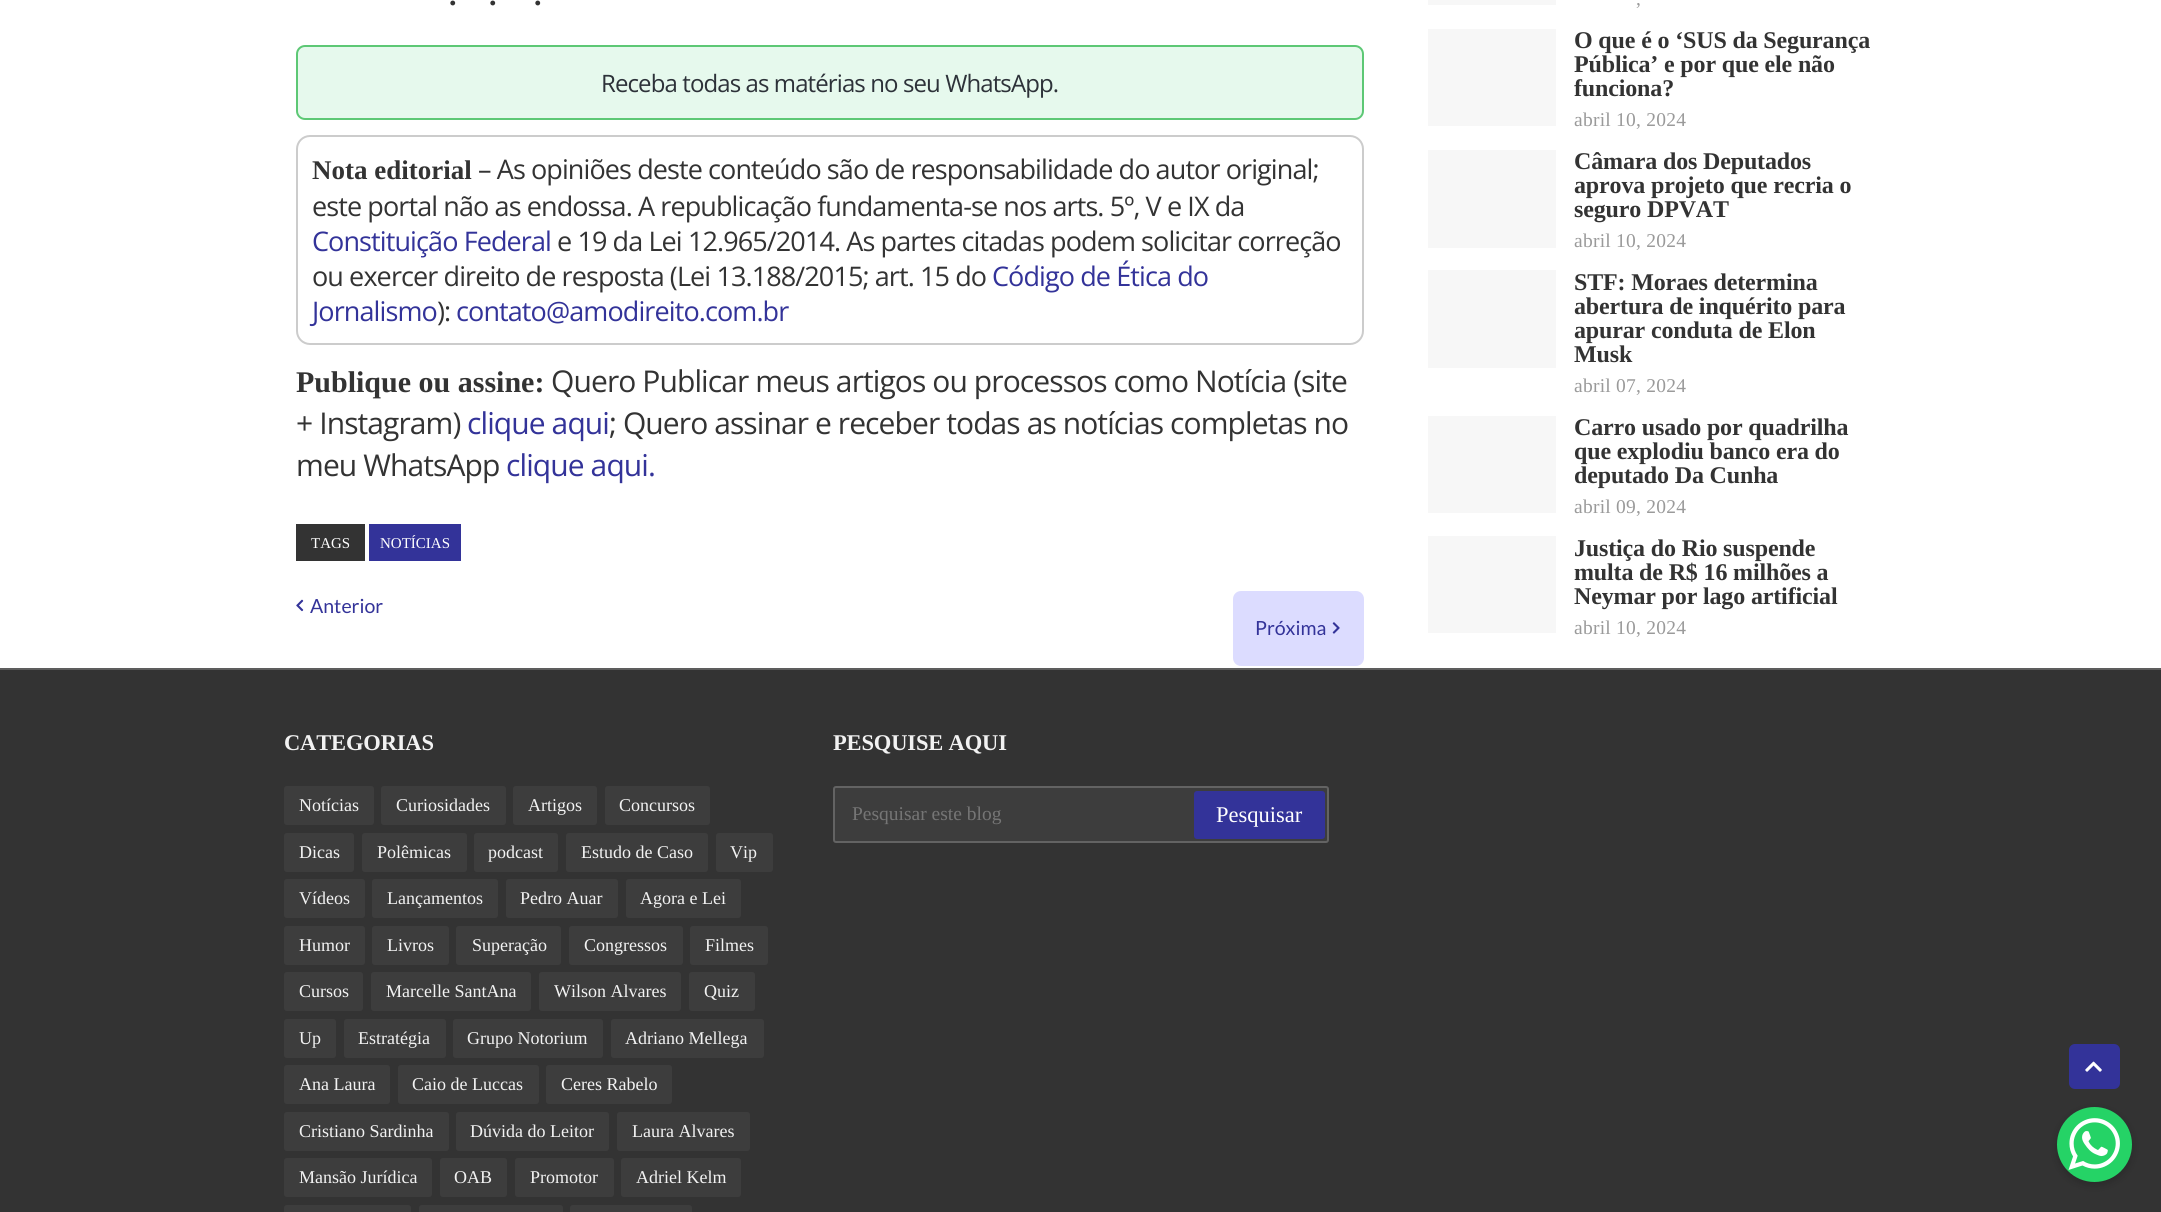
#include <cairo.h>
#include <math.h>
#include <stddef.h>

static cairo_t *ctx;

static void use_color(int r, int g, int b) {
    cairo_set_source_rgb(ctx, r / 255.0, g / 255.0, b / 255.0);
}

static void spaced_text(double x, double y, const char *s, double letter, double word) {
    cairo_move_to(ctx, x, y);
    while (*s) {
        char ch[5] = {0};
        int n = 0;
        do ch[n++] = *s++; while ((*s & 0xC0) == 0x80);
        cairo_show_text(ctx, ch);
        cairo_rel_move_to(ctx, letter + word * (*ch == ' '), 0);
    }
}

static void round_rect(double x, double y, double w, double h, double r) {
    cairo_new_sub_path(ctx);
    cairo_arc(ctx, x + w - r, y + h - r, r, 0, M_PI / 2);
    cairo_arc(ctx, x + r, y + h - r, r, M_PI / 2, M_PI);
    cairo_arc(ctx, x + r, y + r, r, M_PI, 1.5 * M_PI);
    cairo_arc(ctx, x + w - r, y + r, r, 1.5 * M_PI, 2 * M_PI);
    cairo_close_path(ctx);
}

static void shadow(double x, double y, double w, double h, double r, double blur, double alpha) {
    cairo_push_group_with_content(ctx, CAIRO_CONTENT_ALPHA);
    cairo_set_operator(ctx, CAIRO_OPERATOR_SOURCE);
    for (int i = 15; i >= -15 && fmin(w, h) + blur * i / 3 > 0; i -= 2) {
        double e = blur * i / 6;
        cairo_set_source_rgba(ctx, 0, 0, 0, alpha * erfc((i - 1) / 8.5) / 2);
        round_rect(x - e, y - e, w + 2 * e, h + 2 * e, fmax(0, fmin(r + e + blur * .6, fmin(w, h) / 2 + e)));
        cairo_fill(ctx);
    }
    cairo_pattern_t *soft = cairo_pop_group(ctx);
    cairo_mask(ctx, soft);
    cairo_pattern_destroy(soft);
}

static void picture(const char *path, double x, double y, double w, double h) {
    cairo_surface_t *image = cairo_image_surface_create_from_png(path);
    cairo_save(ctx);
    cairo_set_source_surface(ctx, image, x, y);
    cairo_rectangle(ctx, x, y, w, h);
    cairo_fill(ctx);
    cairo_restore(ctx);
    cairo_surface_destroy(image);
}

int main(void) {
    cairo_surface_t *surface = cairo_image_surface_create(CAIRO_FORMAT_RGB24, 2161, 1212);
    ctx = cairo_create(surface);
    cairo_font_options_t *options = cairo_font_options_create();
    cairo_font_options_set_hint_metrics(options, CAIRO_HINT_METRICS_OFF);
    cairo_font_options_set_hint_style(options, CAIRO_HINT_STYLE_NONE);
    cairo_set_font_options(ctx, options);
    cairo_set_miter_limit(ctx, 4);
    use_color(255, 255, 255);
    cairo_paint(ctx);
    cairo_select_font_face(ctx, "Liberation Serif", CAIRO_FONT_SLANT_NORMAL, CAIRO_FONT_WEIGHT_BOLD);
    cairo_set_font_size(ctx, 30);
    use_color(51, 51, 51);
    cairo_move_to(ctx, 449, 5);
    cairo_show_text(ctx, ".");
    cairo_move_to(ctx, 489, 5);
    cairo_show_text(ctx, ".");
    cairo_move_to(ctx, 534, 5);
    cairo_show_text(ctx, ".");
    use_color(230, 249, 237);
    round_rect(297, 46, 1066, 73, 8);
    cairo_fill_preserve(ctx);
    use_color(93, 200, 117);
    cairo_stroke(ctx);
    cairo_select_font_face(ctx, "Open Sans", CAIRO_FONT_SLANT_NORMAL, CAIRO_FONT_WEIGHT_NORMAL);
    cairo_set_font_size(ctx, 24);
    use_color(45, 50, 57);
    spaced_text(601, 92, "Receba todas as matérias no seu WhatsApp.", -0.9, 0);
    round_rect(297, 136, 1066, 208, 13);
    use_color(204, 204, 204);
    cairo_stroke(ctx);
    cairo_select_font_face(ctx, "Liberation Serif", CAIRO_FONT_SLANT_NORMAL, CAIRO_FONT_WEIGHT_BOLD);
    cairo_set_font_size(ctx, 27);
    use_color(51, 51, 51);
    cairo_move_to(ctx, 312, 179);
    cairo_show_text(ctx, "Nota editorial");
    cairo_select_font_face(ctx, "Open Sans", CAIRO_FONT_SLANT_NORMAL, CAIRO_FONT_WEIGHT_NORMAL);
    spaced_text(478, 179, "– As opiniões deste conteúdo são de responsabilidade do autor original;", -0.9, 0);
    spaced_text(312, 216, "este portal não as endossa. A republicação fundamenta-se nos arts. 5º, V e IX da", -0.9, 0);
    use_color(51, 51, 153);
    spaced_text(312, 251, "Constituição Federal", -0.9, 0);
    use_color(51, 51, 51);
    spaced_text(557, 251, "e 19 da Lei 12.965/2014. As partes citadas podem solicitar correção", -0.9, 0);
    spaced_text(312, 286, "ou exercer direito de resposta (Lei 13.188/2015; art. 15 do", -0.9, 0);
    use_color(51, 51, 153);
    spaced_text(992, 286, "Código de Ética do", -0.9, 0);
    spaced_text(312, 321, "Jornalismo", -0.9, 0);
    use_color(51, 51, 51);
    spaced_text(437, 321, "):", -0.9, 0);
    use_color(51, 51, 153);
    spaced_text(456, 321, "contato@amodireito.com.br", -0.9, 0);
    cairo_select_font_face(ctx, "Liberation Serif", CAIRO_FONT_SLANT_NORMAL, CAIRO_FONT_WEIGHT_BOLD);
    cairo_set_font_size(ctx, 30);
    use_color(51, 51, 51);
    cairo_move_to(ctx, 296, 392);
    cairo_show_text(ctx, "Publique ou assine:");
    cairo_select_font_face(ctx, "Open Sans", CAIRO_FONT_SLANT_NORMAL, CAIRO_FONT_WEIGHT_NORMAL);
    spaced_text(551, 392, "Quero Publicar meus artigos ou processos como Notícia (site", -0.9, 0);
    spaced_text(296, 434, "+ Instagram)", -0.9, 0);
    use_color(51, 51, 153);
    spaced_text(467, 434, "clique aqui", -0.9, 0);
    use_color(51, 51, 51);
    spaced_text(609, 434, "; Quero assinar e receber todas as notícias completas no", -0.9, 0);
    spaced_text(296, 476, "meu WhatsApp", -0.9, 0);
    use_color(51, 51, 153);
    spaced_text(506, 476, "clique aqui.", -0.9, 0);
    use_color(51, 51, 51);
    cairo_rectangle(ctx, 296, 524, 69, 37);
    cairo_fill(ctx);
    cairo_select_font_face(ctx, "Liberation Serif", CAIRO_FONT_SLANT_NORMAL, CAIRO_FONT_WEIGHT_NORMAL);
    cairo_set_font_size(ctx, 15);
    use_color(255, 255, 255);
    cairo_move_to(ctx, 311, 548);
    cairo_show_text(ctx, "TAGS");
    use_color(51, 51, 153);
    cairo_rectangle(ctx, 369, 524, 92, 37);
    cairo_fill(ctx);
    use_color(255, 255, 255);
    cairo_move_to(ctx, 380, 548);
    cairo_show_text(ctx, "NOTÍCIAS");
    picture("img1.png", 296, 599, 8, 13);
    cairo_select_font_face(ctx, "Lato", CAIRO_FONT_SLANT_NORMAL, CAIRO_FONT_WEIGHT_NORMAL);
    cairo_set_font_size(ctx, 19.5);
    use_color(51, 51, 153);
    cairo_move_to(ctx, 310, 613);
    cairo_show_text(ctx, "Anterior");
    use_color(220, 220, 255);
    round_rect(1233, 591, 131, 75, 8);
    cairo_fill(ctx);
    use_color(51, 51, 153);
    cairo_move_to(ctx, 1255, 635);
    cairo_show_text(ctx, "Próxima");
    picture("img2.png", 1332, 622, 8, 12);
    use_color(247, 247, 247);
    cairo_rectangle(ctx, 1428, 0, 128, 5);
    cairo_fill(ctx);
    cairo_select_font_face(ctx, "Liberation Serif", CAIRO_FONT_SLANT_NORMAL, CAIRO_FONT_WEIGHT_NORMAL);
    use_color(154, 154, 154);
    spaced_text(1636, 5, ",", 0.25, 0);
    use_color(247, 247, 247);
    cairo_rectangle(ctx, 1428, 29, 128, 97);
    cairo_fill(ctx);
    cairo_select_font_face(ctx, "Liberation Serif", CAIRO_FONT_SLANT_NORMAL, CAIRO_FONT_WEIGHT_BOLD);
    cairo_set_font_size(ctx, 24);
    use_color(51, 51, 51);
    spaced_text(1574, 48, "O que é o ‘SUS da Segurança", -0.15, 0);
    spaced_text(1574, 72, "Pública’ e por que ele não", -0.15, 0);
    spaced_text(1574, 96, "funciona?", -0.15, 0);
    cairo_select_font_face(ctx, "Liberation Serif", CAIRO_FONT_SLANT_NORMAL, CAIRO_FONT_WEIGHT_NORMAL);
    cairo_set_font_size(ctx, 19.5);
    use_color(154, 154, 154);
    spaced_text(1574, 126, "abril 10, 2024", 0.25, 0);
    use_color(247, 247, 247);
    cairo_rectangle(ctx, 1428, 150, 128, 98);
    cairo_fill(ctx);
    cairo_select_font_face(ctx, "Liberation Serif", CAIRO_FONT_SLANT_NORMAL, CAIRO_FONT_WEIGHT_BOLD);
    cairo_set_font_size(ctx, 24);
    use_color(51, 51, 51);
    spaced_text(1574, 169, "Câmara dos Deputados", -0.15, 0);
    spaced_text(1574, 193, "aprova projeto que recria o", -0.15, 0);
    spaced_text(1574, 217, "seguro DPVAT", -0.15, 0);
    cairo_select_font_face(ctx, "Liberation Serif", CAIRO_FONT_SLANT_NORMAL, CAIRO_FONT_WEIGHT_NORMAL);
    cairo_set_font_size(ctx, 19.5);
    use_color(154, 154, 154);
    spaced_text(1574, 247, "abril 10, 2024", 0.25, 0);
    use_color(247, 247, 247);
    cairo_rectangle(ctx, 1428, 270, 128, 98);
    cairo_fill(ctx);
    cairo_select_font_face(ctx, "Liberation Serif", CAIRO_FONT_SLANT_NORMAL, CAIRO_FONT_WEIGHT_BOLD);
    cairo_set_font_size(ctx, 24);
    use_color(51, 51, 51);
    spaced_text(1574, 290, "STF: Moraes determina", -0.15, 0);
    spaced_text(1574, 314, "abertura de inquérito para", -0.15, 0);
    spaced_text(1574, 338, "apurar conduta de Elon", -0.15, 0);
    spaced_text(1574, 362, "Musk", -0.15, 0);
    cairo_select_font_face(ctx, "Liberation Serif", CAIRO_FONT_SLANT_NORMAL, CAIRO_FONT_WEIGHT_NORMAL);
    cairo_set_font_size(ctx, 19.5);
    use_color(154, 154, 154);
    spaced_text(1574, 392, "abril 07, 2024", 0.25, 0);
    use_color(247, 247, 247);
    cairo_rectangle(ctx, 1428, 416, 128, 97);
    cairo_fill(ctx);
    cairo_select_font_face(ctx, "Liberation Serif", CAIRO_FONT_SLANT_NORMAL, CAIRO_FONT_WEIGHT_BOLD);
    cairo_set_font_size(ctx, 24);
    use_color(51, 51, 51);
    spaced_text(1574, 435, "Carro usado por quadrilha", -0.15, 0);
    spaced_text(1574, 459, "que explodiu banco era do", -0.15, 0);
    spaced_text(1574, 483, "deputado Da Cunha", -0.15, 0);
    cairo_select_font_face(ctx, "Liberation Serif", CAIRO_FONT_SLANT_NORMAL, CAIRO_FONT_WEIGHT_NORMAL);
    cairo_set_font_size(ctx, 19.5);
    use_color(154, 154, 154);
    spaced_text(1574, 513, "abril 09, 2024", 0.25, 0);
    use_color(247, 247, 247);
    cairo_rectangle(ctx, 1428, 536, 128, 97);
    cairo_fill(ctx);
    cairo_select_font_face(ctx, "Liberation Serif", CAIRO_FONT_SLANT_NORMAL, CAIRO_FONT_WEIGHT_BOLD);
    cairo_set_font_size(ctx, 24);
    use_color(51, 51, 51);
    spaced_text(1574, 556, "Justiça do Rio suspende", -0.15, 0);
    spaced_text(1574, 580, "multa de R$ 16 milhões a", -0.15, 0);
    spaced_text(1574, 604, "Neymar por lago artificial", -0.15, 0);
    cairo_select_font_face(ctx, "Liberation Serif", CAIRO_FONT_SLANT_NORMAL, CAIRO_FONT_WEIGHT_NORMAL);
    cairo_set_font_size(ctx, 19.5);
    use_color(154, 154, 154);
    spaced_text(1574, 634, "abril 10, 2024", 0.25, 0);
    use_color(51, 51, 51);
    cairo_rectangle(ctx, 0, 670, 2161, 542);
    cairo_fill(ctx);
    use_color(93, 93, 93);
    cairo_rectangle(ctx, 0, 668, 2161, 2);
    cairo_fill(ctx);
    cairo_select_font_face(ctx, "Liberation Serif", CAIRO_FONT_SLANT_NORMAL, CAIRO_FONT_WEIGHT_BOLD);
    cairo_set_font_size(ctx, 22.5);
    use_color(242, 242, 242);
    spaced_text(284, 750, "CATEGORIAS", -0.15, 0);
    use_color(61, 61, 61);
    round_rect(284, 786, 90, 39, 3);
    cairo_fill(ctx);
    cairo_select_font_face(ctx, "Liberation Serif", CAIRO_FONT_SLANT_NORMAL, CAIRO_FONT_WEIGHT_NORMAL);
    cairo_set_font_size(ctx, 18);
    use_color(242, 242, 242);
    cairo_move_to(ctx, 299, 811);
    cairo_show_text(ctx, "Notícias");
    use_color(61, 61, 61);
    round_rect(381, 786, 125, 39, 3);
    cairo_fill(ctx);
    use_color(242, 242, 242);
    cairo_move_to(ctx, 396, 811);
    cairo_show_text(ctx, "Curiosidades");
    use_color(61, 61, 61);
    round_rect(513, 786, 84, 39, 3);
    cairo_fill(ctx);
    use_color(242, 242, 242);
    cairo_move_to(ctx, 528, 811);
    cairo_show_text(ctx, "Artigos");
    use_color(61, 61, 61);
    round_rect(605, 786, 105, 39, 3);
    cairo_fill(ctx);
    use_color(242, 242, 242);
    cairo_move_to(ctx, 619, 811);
    cairo_show_text(ctx, "Concursos");
    use_color(61, 61, 61);
    round_rect(284, 833, 70, 39, 3);
    cairo_fill(ctx);
    use_color(242, 242, 242);
    cairo_move_to(ctx, 299, 858);
    cairo_show_text(ctx, "Dicas");
    use_color(61, 61, 61);
    round_rect(362, 833, 105, 39, 3);
    cairo_fill(ctx);
    use_color(242, 242, 242);
    cairo_move_to(ctx, 377, 858);
    cairo_show_text(ctx, "Polêmicas");
    use_color(61, 61, 61);
    round_rect(474, 833, 84, 39, 3);
    cairo_fill(ctx);
    use_color(242, 242, 242);
    cairo_move_to(ctx, 488, 858);
    cairo_show_text(ctx, "podcast");
    use_color(61, 61, 61);
    round_rect(566, 833, 142, 39, 3);
    cairo_fill(ctx);
    use_color(242, 242, 242);
    cairo_move_to(ctx, 581, 858);
    cairo_show_text(ctx, "Estudo de Caso");
    use_color(61, 61, 61);
    round_rect(716, 833, 57, 39, 3);
    cairo_fill(ctx);
    use_color(242, 242, 242);
    cairo_move_to(ctx, 730, 858);
    cairo_show_text(ctx, "Vip");
    use_color(61, 61, 61);
    round_rect(284, 879, 81, 39, 3);
    cairo_fill(ctx);
    use_color(242, 242, 242);
    cairo_move_to(ctx, 299, 904);
    cairo_show_text(ctx, "Vídeos");
    use_color(61, 61, 61);
    round_rect(372, 879, 126, 39, 3);
    cairo_fill(ctx);
    use_color(242, 242, 242);
    cairo_move_to(ctx, 387, 904);
    cairo_show_text(ctx, "Lançamentos");
    use_color(61, 61, 61);
    round_rect(506, 879, 112, 39, 3);
    cairo_fill(ctx);
    use_color(242, 242, 242);
    cairo_move_to(ctx, 520, 904);
    cairo_show_text(ctx, "Pedro Auar");
    use_color(61, 61, 61);
    round_rect(626, 879, 115, 39, 3);
    cairo_fill(ctx);
    use_color(242, 242, 242);
    cairo_move_to(ctx, 640, 904);
    cairo_show_text(ctx, "Agora e Lei");
    use_color(61, 61, 61);
    round_rect(284, 926, 81, 39, 3);
    cairo_fill(ctx);
    use_color(242, 242, 242);
    cairo_move_to(ctx, 299, 951);
    cairo_show_text(ctx, "Humor");
    use_color(61, 61, 61);
    round_rect(372, 926, 77, 39, 3);
    cairo_fill(ctx);
    use_color(242, 242, 242);
    cairo_move_to(ctx, 387, 951);
    cairo_show_text(ctx, "Livros");
    use_color(61, 61, 61);
    round_rect(456, 926, 105, 39, 3);
    cairo_fill(ctx);
    use_color(242, 242, 242);
    cairo_move_to(ctx, 472, 951);
    cairo_show_text(ctx, "Superação");
    use_color(61, 61, 61);
    round_rect(569, 926, 114, 39, 3);
    cairo_fill(ctx);
    use_color(242, 242, 242);
    cairo_move_to(ctx, 584, 951);
    cairo_show_text(ctx, "Congressos");
    use_color(61, 61, 61);
    round_rect(690, 926, 78, 39, 3);
    cairo_fill(ctx);
    use_color(242, 242, 242);
    cairo_move_to(ctx, 705, 951);
    cairo_show_text(ctx, "Filmes");
    use_color(61, 61, 61);
    round_rect(284, 972, 79, 39, 3);
    cairo_fill(ctx);
    use_color(242, 242, 242);
    cairo_move_to(ctx, 299, 997);
    cairo_show_text(ctx, "Cursos");
    use_color(61, 61, 61);
    round_rect(371, 972, 160, 39, 3);
    cairo_fill(ctx);
    use_color(242, 242, 242);
    cairo_move_to(ctx, 386, 997);
    cairo_show_text(ctx, "Marcelle SantAna");
    use_color(61, 61, 61);
    round_rect(539, 972, 142, 39, 3);
    cairo_fill(ctx);
    use_color(242, 242, 242);
    cairo_move_to(ctx, 554, 997);
    cairo_show_text(ctx, "Wilson Alvares");
    use_color(61, 61, 61);
    round_rect(689, 972, 66, 39, 3);
    cairo_fill(ctx);
    use_color(242, 242, 242);
    cairo_move_to(ctx, 704, 997);
    cairo_show_text(ctx, "Quiz");
    use_color(61, 61, 61);
    round_rect(284, 1019, 52, 39, 3);
    cairo_fill(ctx);
    use_color(242, 242, 242);
    cairo_move_to(ctx, 299, 1044);
    cairo_show_text(ctx, "Up");
    use_color(61, 61, 61);
    round_rect(344, 1019, 102, 39, 3);
    cairo_fill(ctx);
    use_color(242, 242, 242);
    cairo_move_to(ctx, 358, 1044);
    cairo_show_text(ctx, "Estratégia");
    use_color(61, 61, 61);
    round_rect(453, 1019, 150, 39, 3);
    cairo_fill(ctx);
    use_color(242, 242, 242);
    cairo_move_to(ctx, 467, 1044);
    cairo_show_text(ctx, "Grupo Notorium");
    use_color(61, 61, 61);
    round_rect(611, 1019, 153, 39, 3);
    cairo_fill(ctx);
    use_color(242, 242, 242);
    cairo_move_to(ctx, 625, 1044);
    cairo_show_text(ctx, "Adriano Mellega");
    use_color(61, 61, 61);
    round_rect(284, 1065, 106, 39, 3);
    cairo_fill(ctx);
    use_color(242, 242, 242);
    cairo_move_to(ctx, 299, 1090);
    cairo_show_text(ctx, "Ana Laura");
    use_color(61, 61, 61);
    round_rect(398, 1065, 141, 39, 3);
    cairo_fill(ctx);
    use_color(242, 242, 242);
    cairo_move_to(ctx, 412, 1090);
    cairo_show_text(ctx, "Caio de Luccas");
    use_color(61, 61, 61);
    round_rect(546, 1065, 126, 39, 3);
    cairo_fill(ctx);
    use_color(242, 242, 242);
    cairo_move_to(ctx, 561, 1090);
    cairo_show_text(ctx, "Ceres Rabelo");
    use_color(61, 61, 61);
    round_rect(284, 1112, 165, 39, 3);
    cairo_fill(ctx);
    use_color(242, 242, 242);
    cairo_move_to(ctx, 299, 1137);
    cairo_show_text(ctx, "Cristiano Sardinha");
    use_color(61, 61, 61);
    round_rect(456, 1112, 153, 39, 3);
    cairo_fill(ctx);
    use_color(242, 242, 242);
    cairo_move_to(ctx, 470, 1137);
    cairo_show_text(ctx, "Dúvida do Leitor");
    use_color(61, 61, 61);
    round_rect(617, 1112, 133, 39, 3);
    cairo_fill(ctx);
    use_color(242, 242, 242);
    cairo_move_to(ctx, 632, 1137);
    cairo_show_text(ctx, "Laura Alvares");
    use_color(61, 61, 61);
    round_rect(284, 1158, 148, 39, 3);
    cairo_fill(ctx);
    use_color(242, 242, 242);
    cairo_move_to(ctx, 299, 1183);
    cairo_show_text(ctx, "Mansão Jurídica");
    use_color(61, 61, 61);
    round_rect(440, 1158, 67, 39, 3);
    cairo_fill(ctx);
    use_color(242, 242, 242);
    cairo_move_to(ctx, 454, 1183);
    cairo_show_text(ctx, "OAB");
    use_color(61, 61, 61);
    round_rect(515, 1158, 99, 39, 3);
    cairo_fill(ctx);
    use_color(242, 242, 242);
    cairo_move_to(ctx, 530, 1183);
    cairo_show_text(ctx, "Promotor");
    use_color(61, 61, 61);
    round_rect(621, 1158, 120, 39, 3);
    cairo_fill(ctx);
    use_color(242, 242, 242);
    cairo_move_to(ctx, 636, 1183);
    cairo_show_text(ctx, "Adriel Kelm");
    use_color(61, 61, 61);
    round_rect(284, 1205, 127, 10, 3);
    cairo_fill(ctx);
    round_rect(419, 1205, 144, 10, 3);
    cairo_fill(ctx);
    round_rect(570, 1205, 122, 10, 3);
    cairo_fill(ctx);
    cairo_select_font_face(ctx, "Liberation Serif", CAIRO_FONT_SLANT_NORMAL, CAIRO_FONT_WEIGHT_BOLD);
    cairo_set_font_size(ctx, 22.5);
    use_color(242, 242, 242);
    spaced_text(833, 750, "PESQUISE AQUI", -0.15, 0);
    use_color(61, 61, 61);
    round_rect(833, 786, 496, 57, 3);
    cairo_fill(ctx);
    round_rect(834, 787, 494, 55, 2);
    cairo_set_source_rgba(ctx, 0.608, 0.608, 0.608, 0.4);
    cairo_stroke(ctx);
    cairo_select_font_face(ctx, "Liberation Serif", CAIRO_FONT_SLANT_NORMAL, CAIRO_FONT_WEIGHT_NORMAL);
    cairo_set_font_size(ctx, 19.5);
    use_color(117, 117, 117);
    cairo_move_to(ctx, 852, 820);
    cairo_show_text(ctx, "Pesquisar este blog");
    use_color(51, 51, 153);
    round_rect(1194, 791, 131, 48, 3);
    cairo_fill(ctx);
    cairo_set_font_size(ctx, 22.5);
    use_color(255, 255, 255);
    cairo_move_to(ctx, 1216, 822);
    cairo_show_text(ctx, "Pesquisar");
    use_color(51, 51, 153);
    round_rect(2069, 1044, 51, 45, 6);
    cairo_fill(ctx);
    picture("img3.png", 2085, 1061, 17, 11);
    use_color(0, 0, 0);
    shadow(2057, 1110, 75, 75, 37.5, 4.5, 0.2);
    use_color(37, 211, 102);
    cairo_arc(ctx, 2094.5, 1144.5, 37.5, 0, 2 * M_PI);
    cairo_fill(ctx);
    picture("img4.png", 2068, 1118, 52, 52);
    cairo_surface_write_to_png(surface, "result.png");
    cairo_font_options_destroy(options);
    cairo_destroy(ctx);
    cairo_surface_destroy(surface);
    return 0;
}
